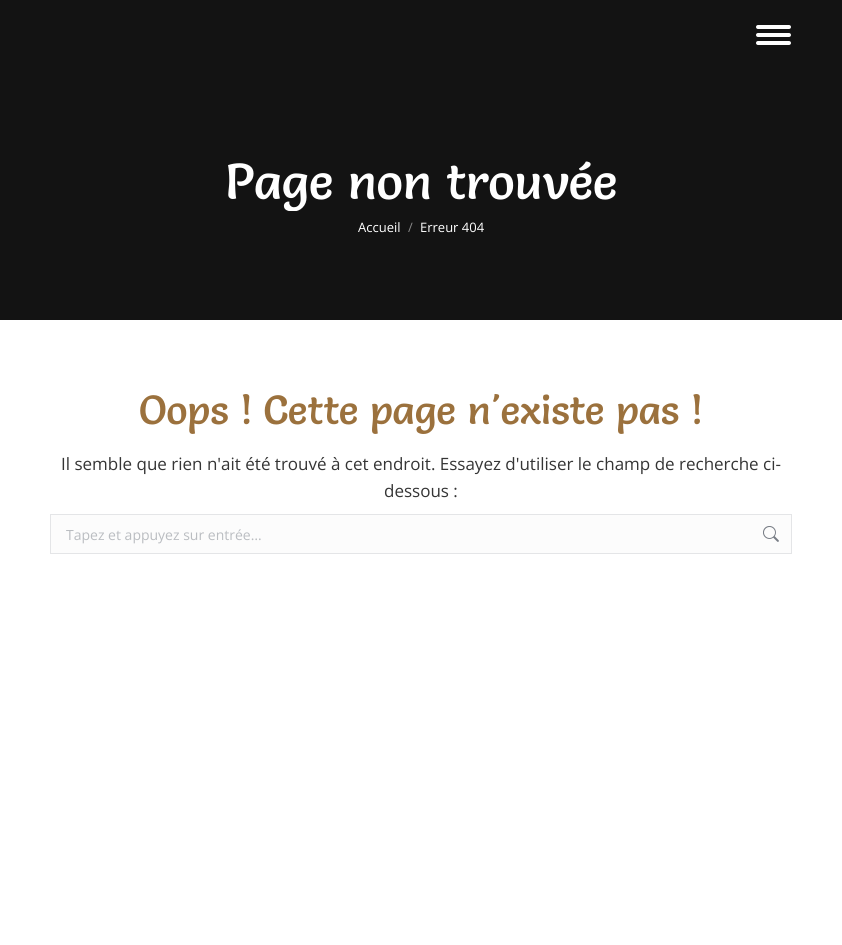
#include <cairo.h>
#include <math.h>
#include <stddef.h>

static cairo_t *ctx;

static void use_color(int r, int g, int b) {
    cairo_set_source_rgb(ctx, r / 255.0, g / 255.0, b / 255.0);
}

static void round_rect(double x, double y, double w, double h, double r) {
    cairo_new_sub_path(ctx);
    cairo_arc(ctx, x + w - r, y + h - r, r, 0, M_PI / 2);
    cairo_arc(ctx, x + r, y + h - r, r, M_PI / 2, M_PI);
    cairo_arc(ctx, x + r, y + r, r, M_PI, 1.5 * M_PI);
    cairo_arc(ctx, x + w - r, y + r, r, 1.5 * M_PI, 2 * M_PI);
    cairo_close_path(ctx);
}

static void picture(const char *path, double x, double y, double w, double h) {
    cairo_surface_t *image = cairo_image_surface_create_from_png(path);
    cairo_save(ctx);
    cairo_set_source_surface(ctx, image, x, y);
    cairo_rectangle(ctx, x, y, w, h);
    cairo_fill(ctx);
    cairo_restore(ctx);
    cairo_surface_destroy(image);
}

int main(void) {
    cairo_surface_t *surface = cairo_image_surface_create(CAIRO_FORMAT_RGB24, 842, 945);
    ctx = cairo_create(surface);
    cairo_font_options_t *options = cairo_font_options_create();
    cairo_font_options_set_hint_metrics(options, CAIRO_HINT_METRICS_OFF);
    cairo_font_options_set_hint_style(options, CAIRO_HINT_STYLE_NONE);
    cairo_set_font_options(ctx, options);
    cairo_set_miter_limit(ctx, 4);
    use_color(255, 255, 255);
    cairo_paint(ctx);
    use_color(19, 19, 19);
    cairo_rectangle(ctx, 0, 0, 842, 320);
    cairo_fill(ctx);
    use_color(255, 255, 255);
    round_rect(756, 25, 35, 4, 2);
    cairo_fill(ctx);
    round_rect(756, 33, 35, 4, 2);
    cairo_fill(ctx);
    round_rect(756, 41, 35, 4, 2);
    cairo_fill(ctx);
    cairo_save(ctx);
    cairo_rectangle(ctx, 225, 151, 392, 60);
    cairo_clip(ctx);
    cairo_select_font_face(ctx, "Salsa", CAIRO_FONT_SLANT_NORMAL, CAIRO_FONT_WEIGHT_NORMAL);
    cairo_set_font_size(ctx, 50);
    cairo_move_to(ctx, 225, 199);
    cairo_show_text(ctx, "Page non trouvée");
    cairo_restore(ctx);
    cairo_select_font_face(ctx, "Open Sans", CAIRO_FONT_SLANT_NORMAL, CAIRO_FONT_WEIGHT_NORMAL);
    cairo_set_font_size(ctx, 13);
    cairo_move_to(ctx, 358, 232);
    cairo_show_text(ctx, "Accueil");
    use_color(137, 137, 137);
    cairo_move_to(ctx, 408, 232);
    cairo_show_text(ctx, "/");
    use_color(255, 255, 255);
    cairo_move_to(ctx, 420, 232);
    cairo_show_text(ctx, "Erreur 404");
    cairo_select_font_face(ctx, "Salsa", CAIRO_FONT_SLANT_NORMAL, CAIRO_FONT_WEIGHT_NORMAL);
    cairo_set_font_size(ctx, 40);
    use_color(155, 113, 61);
    cairo_move_to(ctx, 139, 424);
    cairo_show_text(ctx, "Oops ! Cette page n'existe pas !");
    cairo_select_font_face(ctx, "Open Sans", CAIRO_FONT_SLANT_NORMAL, CAIRO_FONT_WEIGHT_NORMAL);
    cairo_set_font_size(ctx, 17);
    use_color(53, 53, 53);
    cairo_move_to(ctx, 61, 470);
    cairo_show_text(ctx, "Il semble que rien n'ait été trouvé à cet endroit. Essayez d'utiliser le champ de recherche ci-");
    cairo_move_to(ctx, 384, 497);
    cairo_show_text(ctx, "dessous :");
    use_color(252, 252, 252);
    cairo_rectangle(ctx, 50.5, 514.5, 741, 39);
    cairo_fill_preserve(ctx);
    use_color(228, 229, 231);
    cairo_set_line_width(ctx, 1);
    cairo_stroke(ctx);
    cairo_set_font_size(ctx, 14);
    use_color(186, 189, 193);
    cairo_move_to(ctx, 66, 540);
    cairo_show_text(ctx, "Tapez et appuyez sur entrée…");
    picture("img1.png", 763, 526, 16, 16);
    cairo_surface_write_to_png(surface, "result.png");
    cairo_font_options_destroy(options);
    cairo_destroy(ctx);
    cairo_surface_destroy(surface);
    return 0;
}
